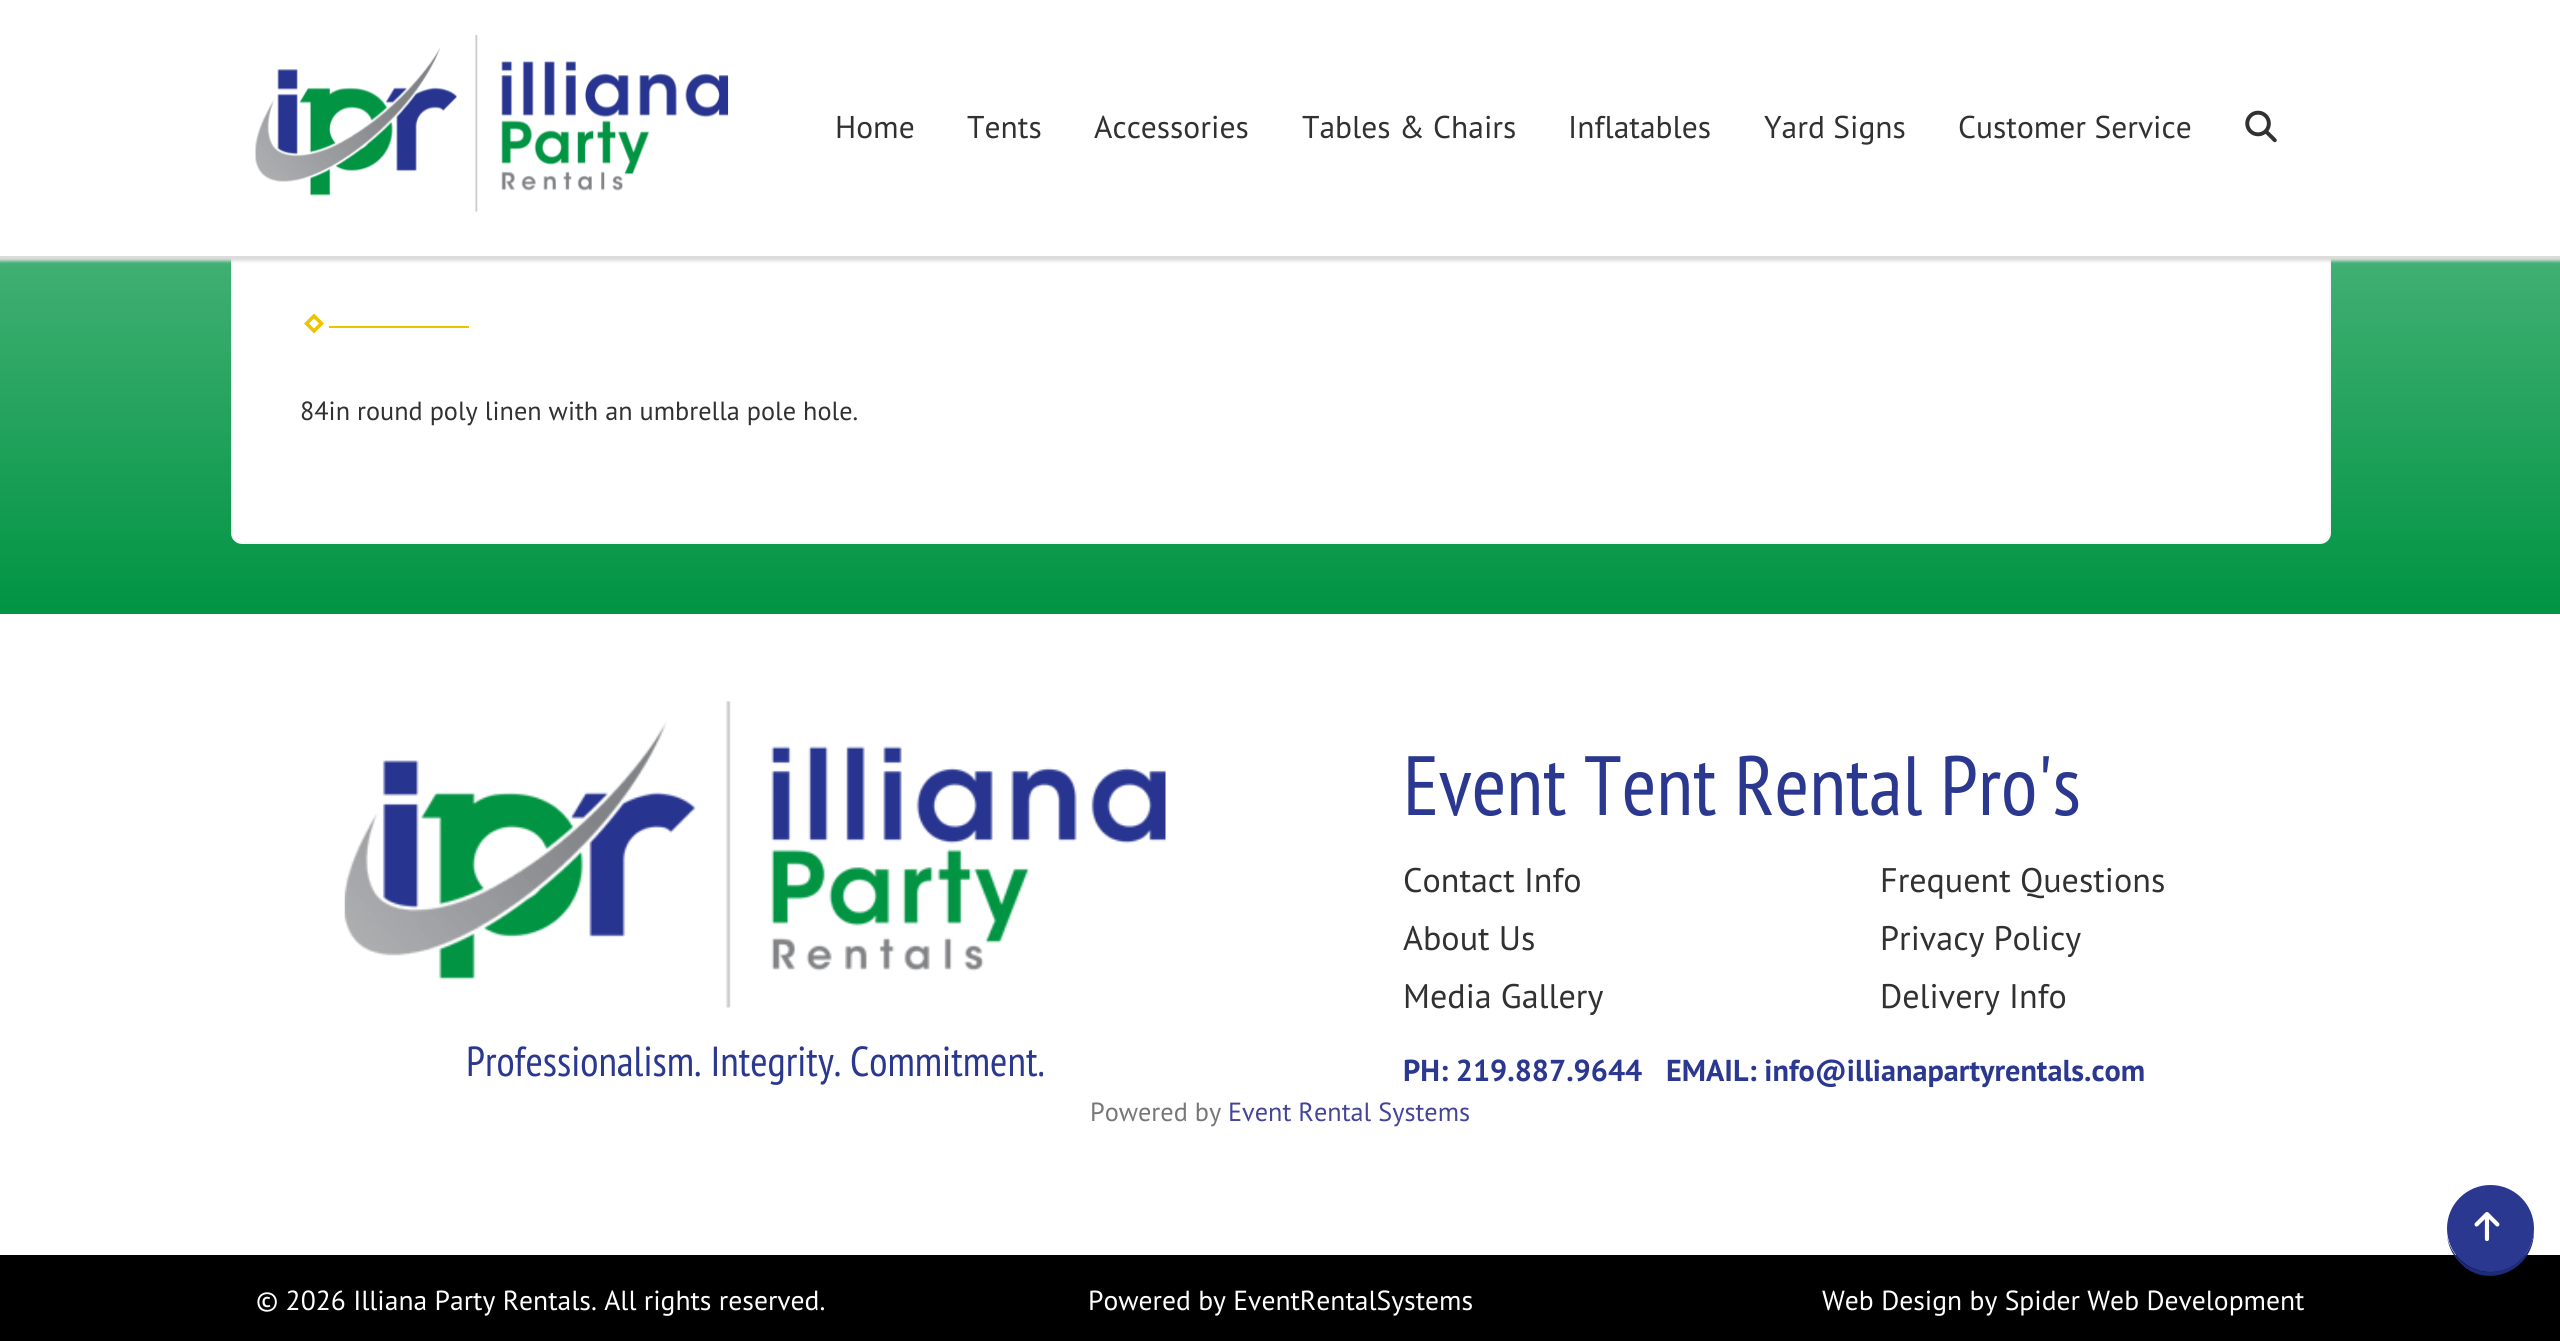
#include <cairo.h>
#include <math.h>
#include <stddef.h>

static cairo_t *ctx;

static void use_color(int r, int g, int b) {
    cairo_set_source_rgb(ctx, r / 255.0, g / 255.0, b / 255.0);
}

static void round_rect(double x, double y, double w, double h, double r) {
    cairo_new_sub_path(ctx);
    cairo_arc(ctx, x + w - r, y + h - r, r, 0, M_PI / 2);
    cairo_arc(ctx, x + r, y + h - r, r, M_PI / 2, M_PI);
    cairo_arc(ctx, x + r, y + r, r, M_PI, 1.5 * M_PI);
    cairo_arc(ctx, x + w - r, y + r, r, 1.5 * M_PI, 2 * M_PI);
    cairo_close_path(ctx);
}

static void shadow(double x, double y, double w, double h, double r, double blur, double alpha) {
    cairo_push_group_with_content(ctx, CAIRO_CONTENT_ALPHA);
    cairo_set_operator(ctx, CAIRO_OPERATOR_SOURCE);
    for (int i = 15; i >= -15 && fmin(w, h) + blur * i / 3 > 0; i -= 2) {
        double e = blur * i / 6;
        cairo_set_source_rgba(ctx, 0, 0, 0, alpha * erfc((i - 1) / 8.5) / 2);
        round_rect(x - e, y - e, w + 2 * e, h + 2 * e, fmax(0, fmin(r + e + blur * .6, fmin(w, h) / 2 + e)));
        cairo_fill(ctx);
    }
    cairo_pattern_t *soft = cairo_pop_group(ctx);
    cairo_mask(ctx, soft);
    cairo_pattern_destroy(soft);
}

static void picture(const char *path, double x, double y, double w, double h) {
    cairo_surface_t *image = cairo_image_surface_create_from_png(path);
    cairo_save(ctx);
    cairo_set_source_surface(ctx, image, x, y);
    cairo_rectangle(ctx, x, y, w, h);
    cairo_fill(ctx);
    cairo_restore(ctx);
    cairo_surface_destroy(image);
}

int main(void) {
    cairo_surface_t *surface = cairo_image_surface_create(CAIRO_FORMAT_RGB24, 2560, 1341);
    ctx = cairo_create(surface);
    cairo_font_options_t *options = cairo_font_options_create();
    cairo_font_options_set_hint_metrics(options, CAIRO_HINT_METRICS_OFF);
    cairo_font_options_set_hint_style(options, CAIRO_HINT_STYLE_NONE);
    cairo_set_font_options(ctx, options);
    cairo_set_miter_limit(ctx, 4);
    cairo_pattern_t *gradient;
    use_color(255, 255, 255);
    cairo_paint(ctx);
    gradient = cairo_pattern_create_linear(1280, 614, 1280, -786);
    cairo_pattern_add_color_stop_rgba(gradient, 0, 0, 0.58, 0.263, 1);
    cairo_pattern_add_color_stop_rgba(gradient, 1, 1, 1, 1, 1);
    cairo_set_source(ctx, gradient);
    cairo_pattern_destroy(gradient);
    cairo_rectangle(ctx, 0, 256, 2560, 358);
    cairo_fill(ctx);
    use_color(255, 255, 255);
    round_rect(232, -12, 2098, 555, 10);
    cairo_fill_preserve(ctx);
    use_color(249, 248, 248);
    cairo_stroke(ctx);
    use_color(220, 220, 220);
    shadow(-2, 2, 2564, 259, 0, 1.5, 1);
    use_color(255, 255, 255);
    cairo_rectangle(ctx, 0, 0, 2560, 256);
    cairo_fill(ctx);
    picture("img1.png", 255, 35, 474, 177);
    cairo_select_font_face(ctx, "PT Sans", CAIRO_FONT_SLANT_NORMAL, CAIRO_FONT_WEIGHT_NORMAL);
    cairo_set_font_size(ctx, 31.5);
    use_color(49, 49, 49);
    cairo_move_to(ctx, 835, 138);
    cairo_show_text(ctx, "Home");
    cairo_move_to(ctx, 967, 138);
    cairo_show_text(ctx, "Tents");
    cairo_move_to(ctx, 1094, 138);
    cairo_show_text(ctx, "Accessories");
    cairo_move_to(ctx, 1302, 138);
    cairo_show_text(ctx, "Tables & Chairs");
    cairo_move_to(ctx, 1568, 138);
    cairo_show_text(ctx, "Inflatables");
    cairo_move_to(ctx, 1764, 138);
    cairo_show_text(ctx, "Yard Signs");
    cairo_move_to(ctx, 1958, 138);
    cairo_show_text(ctx, "Customer Service");
    picture("img2.png", 2245, 110, 32, 33);
    cairo_new_path(ctx);
    cairo_move_to(ctx, 314, 316);
    cairo_line_to(ctx, 321.5, 323.5);
    cairo_line_to(ctx, 314, 331);
    cairo_line_to(ctx, 306.5, 323.5);
    cairo_close_path(ctx);
    use_color(238, 196, 0);
    cairo_set_line_width(ctx, 3.5);
    cairo_stroke(ctx);
    cairo_rectangle(ctx, 329, 326, 140, 2);
    cairo_fill(ctx);
    cairo_set_font_size(ctx, 26.25);
    use_color(49, 49, 49);
    cairo_move_to(ctx, 300, 420);
    cairo_show_text(ctx, "84in round poly linen with an umbrella pole hole.");
    picture("img3.png", 344, 701, 822, 307);
    cairo_select_font_face(ctx, "PT Sans Narrow", CAIRO_FONT_SLANT_NORMAL, CAIRO_FONT_WEIGHT_NORMAL);
    cairo_set_font_size(ctx, 42);
    use_color(43, 56, 143);
    cairo_move_to(ctx, 466, 1076);
    cairo_show_text(ctx, "Professionalism. Integrity. Commitment.");
    cairo_set_font_size(ctx, 84);
    cairo_move_to(ctx, 1403, 815);
    cairo_show_text(ctx, "Event Tent Rental Pro's");
    cairo_select_font_face(ctx, "PT Sans", CAIRO_FONT_SLANT_NORMAL, CAIRO_FONT_WEIGHT_NORMAL);
    cairo_set_font_size(ctx, 34.1);
    use_color(49, 49, 49);
    cairo_move_to(ctx, 1403, 892);
    cairo_show_text(ctx, "Contact Info");
    cairo_move_to(ctx, 1403, 950);
    cairo_show_text(ctx, "About Us");
    cairo_move_to(ctx, 1403, 1008);
    cairo_show_text(ctx, "Media Gallery");
    cairo_move_to(ctx, 1880, 892);
    cairo_show_text(ctx, "Frequent Questions");
    cairo_move_to(ctx, 1880, 950);
    cairo_show_text(ctx, "Privacy Policy");
    cairo_move_to(ctx, 1880, 1008);
    cairo_show_text(ctx, "Delivery Info");
    cairo_select_font_face(ctx, "PT Sans", CAIRO_FONT_SLANT_NORMAL, CAIRO_FONT_WEIGHT_BOLD);
    cairo_set_font_size(ctx, 30.25);
    use_color(43, 56, 143);
    cairo_move_to(ctx, 1403, 1081);
    cairo_show_text(ctx, "PH: 219.887.9644");
    cairo_move_to(ctx, 1666, 1081);
    cairo_show_text(ctx, "EMAIL: info@illianapartyrentals.com");
    cairo_select_font_face(ctx, "PT Sans", CAIRO_FONT_SLANT_NORMAL, CAIRO_FONT_WEIGHT_NORMAL);
    cairo_set_font_size(ctx, 26.25);
    use_color(119, 119, 119);
    cairo_move_to(ctx, 1090, 1121);
    cairo_show_text(ctx, "Powered by");
    use_color(68, 68, 153);
    cairo_move_to(ctx, 1228, 1121);
    cairo_show_text(ctx, "Event Rental Systems");
    use_color(0, 0, 0);
    cairo_rectangle(ctx, 0, 1255, 2560, 86);
    cairo_fill(ctx);
    use_color(30, 42, 122);
    cairo_new_path(ctx);
    cairo_move_to(ctx, 2447, 1236);
    cairo_curve_to(ctx, 2448, 1244, 2451, 1252, 2456, 1258);
    cairo_curve_to(ctx, 2481, 1293, 2535, 1273, 2534, 1230);
    cairo_curve_to(ctx, 2533, 1253, 2514, 1272, 2490, 1272);
    cairo_curve_to(ctx, 2469, 1272, 2451, 1257, 2447, 1236);
    cairo_close_path(ctx);
    cairo_fill(ctx);
    use_color(43, 56, 143);
    cairo_arc(ctx, 2490.5, 1228.5, 43.5, 0, 2 * M_PI);
    cairo_fill(ctx);
    picture("img4.png", 2474, 1212, 26, 29);
    cairo_set_font_size(ctx, 27.6);
    use_color(255, 255, 255);
    cairo_move_to(ctx, 256, 1310);
    cairo_show_text(ctx, "© 2026 Illiana Party Rentals. All rights reserved.");
    cairo_move_to(ctx, 1088, 1310);
    cairo_show_text(ctx, "Powered by EventRentalSystems");
    cairo_move_to(ctx, 1822, 1310);
    cairo_show_text(ctx, "Web Design by Spider Web Development");
    cairo_surface_write_to_png(surface, "result.png");
    cairo_font_options_destroy(options);
    cairo_destroy(ctx);
    cairo_surface_destroy(surface);
    return 0;
}
